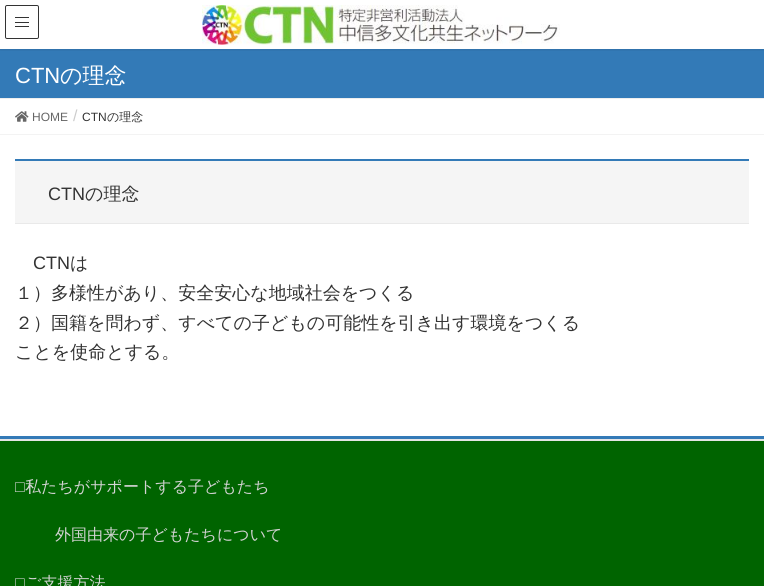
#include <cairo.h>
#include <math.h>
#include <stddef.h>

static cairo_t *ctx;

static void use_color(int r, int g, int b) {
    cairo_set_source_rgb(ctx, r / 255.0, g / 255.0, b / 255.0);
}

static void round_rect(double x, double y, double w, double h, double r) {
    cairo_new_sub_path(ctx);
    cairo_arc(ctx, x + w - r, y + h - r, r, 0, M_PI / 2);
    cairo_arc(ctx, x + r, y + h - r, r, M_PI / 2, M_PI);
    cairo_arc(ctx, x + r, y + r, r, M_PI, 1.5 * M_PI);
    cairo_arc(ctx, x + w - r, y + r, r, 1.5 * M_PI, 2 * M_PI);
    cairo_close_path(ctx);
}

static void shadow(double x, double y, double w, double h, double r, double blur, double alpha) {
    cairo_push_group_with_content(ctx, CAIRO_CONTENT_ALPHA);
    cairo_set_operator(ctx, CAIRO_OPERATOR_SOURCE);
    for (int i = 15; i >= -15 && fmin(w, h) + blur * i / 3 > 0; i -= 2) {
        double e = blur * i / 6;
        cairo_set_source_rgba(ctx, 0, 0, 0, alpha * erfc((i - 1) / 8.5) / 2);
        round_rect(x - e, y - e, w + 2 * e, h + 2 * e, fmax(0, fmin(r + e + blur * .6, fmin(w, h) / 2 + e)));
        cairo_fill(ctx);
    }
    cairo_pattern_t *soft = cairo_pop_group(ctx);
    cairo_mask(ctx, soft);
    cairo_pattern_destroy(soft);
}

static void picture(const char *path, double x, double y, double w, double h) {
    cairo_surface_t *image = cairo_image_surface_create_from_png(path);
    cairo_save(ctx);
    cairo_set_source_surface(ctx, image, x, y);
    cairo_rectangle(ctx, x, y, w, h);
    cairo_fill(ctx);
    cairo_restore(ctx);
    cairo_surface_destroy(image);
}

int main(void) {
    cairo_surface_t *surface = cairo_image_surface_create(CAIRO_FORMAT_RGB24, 764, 586);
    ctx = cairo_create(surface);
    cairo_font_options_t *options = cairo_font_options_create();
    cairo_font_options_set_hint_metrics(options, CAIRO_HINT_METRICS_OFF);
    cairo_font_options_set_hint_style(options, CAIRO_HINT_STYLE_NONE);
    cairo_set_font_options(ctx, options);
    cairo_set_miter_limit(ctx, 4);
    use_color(255, 255, 255);
    cairo_paint(ctx);
    use_color(51, 122, 183);
    cairo_rectangle(ctx, 0, 49, 764, 49);
    cairo_fill(ctx);
    cairo_save(ctx);
    cairo_rectangle(ctx, 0, 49, 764, 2);
    cairo_clip(ctx);
    use_color(0, 0, 0);
    shadow(0, 1, 764, 49, 0, 1.5, 0.1);
    cairo_restore(ctx);
    picture("img1.png", 202, 5, 358, 40);
    use_color(51, 51, 51);
    cairo_rectangle(ctx, 15, 17, 14, 1);
    cairo_fill(ctx);
    cairo_rectangle(ctx, 15, 22, 14, 1);
    cairo_fill(ctx);
    cairo_rectangle(ctx, 15, 26, 14, 1);
    cairo_fill(ctx);
    round_rect(5.5, 5.5, 33, 33, 1.5);
    cairo_set_line_width(ctx, 1);
    cairo_stroke(ctx);
    use_color(238, 238, 238);
    cairo_rectangle(ctx, 0, 98, 764, 1);
    cairo_fill(ctx);
    cairo_select_font_face(ctx, "Liberation Sans", CAIRO_FONT_SLANT_NORMAL, CAIRO_FONT_WEIGHT_NORMAL);
    cairo_set_font_size(ctx, 22);
    use_color(255, 255, 255);
    cairo_move_to(ctx, 15, 83);
    cairo_show_text(ctx, "CTN");
    cairo_select_font_face(ctx, "WenQuanYi Zen Hei Medium", CAIRO_FONT_SLANT_NORMAL, CAIRO_FONT_WEIGHT_NORMAL);
    cairo_move_to(ctx, 60, 83);
    cairo_show_text(ctx, "の理念");
    use_color(243, 243, 243);
    cairo_rectangle(ctx, 0, 134, 764, 1);
    cairo_fill(ctx);
    picture("img2.png", 15, 111, 14, 11);
    cairo_select_font_face(ctx, "Liberation Sans", CAIRO_FONT_SLANT_NORMAL, CAIRO_FONT_WEIGHT_NORMAL);
    cairo_set_font_size(ctx, 12);
    use_color(102, 102, 102);
    cairo_move_to(ctx, 32, 121);
    cairo_show_text(ctx, "HOME");
    cairo_set_font_size(ctx, 16);
    use_color(204, 204, 204);
    cairo_move_to(ctx, 73, 121);
    cairo_show_text(ctx, "/");
    cairo_set_font_size(ctx, 12);
    use_color(51, 51, 51);
    cairo_move_to(ctx, 82, 121);
    cairo_show_text(ctx, "CTN");
    cairo_select_font_face(ctx, "WenQuanYi Zen Hei Medium", CAIRO_FONT_SLANT_NORMAL, CAIRO_FONT_WEIGHT_NORMAL);
    cairo_move_to(ctx, 107, 121);
    cairo_show_text(ctx, "の理念");
    use_color(245, 245, 245);
    cairo_rectangle(ctx, 15, 161, 734, 62);
    cairo_fill(ctx);
    use_color(51, 122, 183);
    cairo_rectangle(ctx, 15, 159, 734, 2);
    cairo_fill(ctx);
    use_color(233, 233, 233);
    cairo_rectangle(ctx, 15, 223, 734, 1);
    cairo_fill(ctx);
    cairo_select_font_face(ctx, "Liberation Sans", CAIRO_FONT_SLANT_NORMAL, CAIRO_FONT_WEIGHT_NORMAL);
    cairo_set_font_size(ctx, 18);
    use_color(51, 51, 51);
    cairo_move_to(ctx, 48, 200);
    cairo_show_text(ctx, "CTN");
    cairo_select_font_face(ctx, "WenQuanYi Zen Hei Medium", CAIRO_FONT_SLANT_NORMAL, CAIRO_FONT_WEIGHT_NORMAL);
    cairo_move_to(ctx, 85, 200);
    cairo_show_text(ctx, "の理念");
    cairo_select_font_face(ctx, "Liberation Sans", CAIRO_FONT_SLANT_NORMAL, CAIRO_FONT_WEIGHT_NORMAL);
    cairo_move_to(ctx, 33, 269);
    cairo_show_text(ctx, "CTN");
    cairo_select_font_face(ctx, "WenQuanYi Zen Hei Medium", CAIRO_FONT_SLANT_NORMAL, CAIRO_FONT_WEIGHT_NORMAL);
    cairo_move_to(ctx, 70, 269);
    cairo_show_text(ctx, "は");
    cairo_move_to(ctx, 15, 299);
    cairo_show_text(ctx, "１）多様性があり、安全安心な地域社会をつくる");
    cairo_move_to(ctx, 15, 329);
    cairo_show_text(ctx, "２）国籍を問わず、すべての子どもの可能性を引き出す環境をつくる");
    cairo_move_to(ctx, 15, 358);
    cairo_show_text(ctx, "ことを使命とする。");
    use_color(0, 100, 0);
    cairo_rectangle(ctx, 0, 441, 764, 145);
    cairo_fill(ctx);
    use_color(51, 122, 183);
    cairo_rectangle(ctx, 0, 436, 764, 3);
    cairo_fill(ctx);
    use_color(229, 229, 229);
    cairo_rectangle(ctx, 0, 439, 764, 2);
    cairo_fill(ctx);
    cairo_select_font_face(ctx, "Liberation Sans", CAIRO_FONT_SLANT_NORMAL, CAIRO_FONT_WEIGHT_NORMAL);
    cairo_set_font_size(ctx, 16);
    use_color(211, 211, 211);
    cairo_move_to(ctx, 15, 492);
    cairo_show_text(ctx, "□");
    cairo_select_font_face(ctx, "WenQuanYi Zen Hei Medium", CAIRO_FONT_SLANT_NORMAL, CAIRO_FONT_WEIGHT_NORMAL);
    cairo_move_to(ctx, 25, 492);
    cairo_show_text(ctx, "私たちがサポートする子どもたち");
    cairo_move_to(ctx, 55, 540);
    cairo_show_text(ctx, "外国由来の子どもたちについて");
    cairo_select_font_face(ctx, "Liberation Sans", CAIRO_FONT_SLANT_NORMAL, CAIRO_FONT_WEIGHT_NORMAL);
    cairo_move_to(ctx, 15, 588);
    cairo_show_text(ctx, "□");
    cairo_select_font_face(ctx, "WenQuanYi Zen Hei Medium", CAIRO_FONT_SLANT_NORMAL, CAIRO_FONT_WEIGHT_NORMAL);
    cairo_move_to(ctx, 25, 588);
    cairo_show_text(ctx, "ご支援方法");
    cairo_surface_write_to_png(surface, "result.png");
    cairo_font_options_destroy(options);
    cairo_destroy(ctx);
    cairo_surface_destroy(surface);
    return 0;
}
